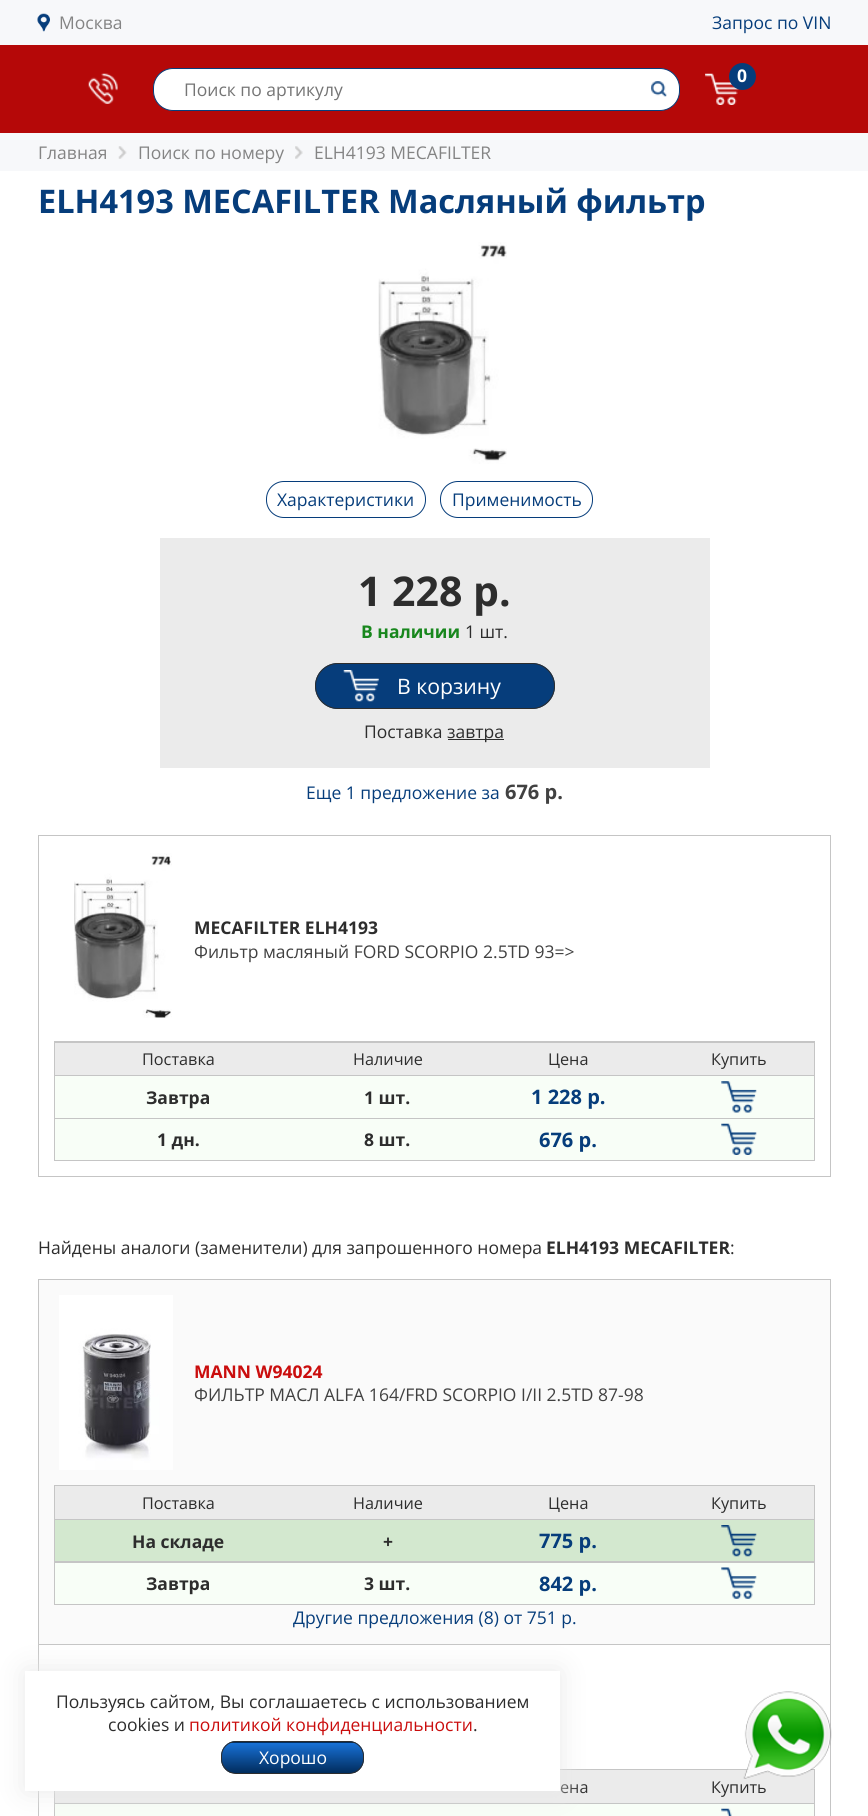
#include <cairo.h>
#include <math.h>
#include <stddef.h>

static cairo_t *ctx;

static void use_color(int r, int g, int b) {
    cairo_set_source_rgb(ctx, r / 255.0, g / 255.0, b / 255.0);
}

static void round_rect(double x, double y, double w, double h, double r) {
    cairo_new_sub_path(ctx);
    cairo_arc(ctx, x + w - r, y + h - r, r, 0, M_PI / 2);
    cairo_arc(ctx, x + r, y + h - r, r, M_PI / 2, M_PI);
    cairo_arc(ctx, x + r, y + r, r, M_PI, 1.5 * M_PI);
    cairo_arc(ctx, x + w - r, y + r, r, 1.5 * M_PI, 2 * M_PI);
    cairo_close_path(ctx);
}

static void shadow(double x, double y, double w, double h, double r, double blur, double alpha) {
    cairo_push_group_with_content(ctx, CAIRO_CONTENT_ALPHA);
    cairo_set_operator(ctx, CAIRO_OPERATOR_SOURCE);
    for (int i = 15; i >= -15 && fmin(w, h) + blur * i / 3 > 0; i -= 2) {
        double e = blur * i / 6;
        cairo_set_source_rgba(ctx, 0, 0, 0, alpha * erfc((i - 1) / 8.5) / 2);
        round_rect(x - e, y - e, w + 2 * e, h + 2 * e, fmax(0, fmin(r + e + blur * .6, fmin(w, h) / 2 + e)));
        cairo_fill(ctx);
    }
    cairo_pattern_t *soft = cairo_pop_group(ctx);
    cairo_mask(ctx, soft);
    cairo_pattern_destroy(soft);
}

static void picture(const char *path, double x, double y, double w, double h) {
    cairo_surface_t *image = cairo_image_surface_create_from_png(path);
    cairo_save(ctx);
    cairo_set_source_surface(ctx, image, x, y);
    cairo_rectangle(ctx, x, y, w, h);
    cairo_fill(ctx);
    cairo_restore(ctx);
    cairo_surface_destroy(image);
}

int main(void) {
    cairo_surface_t *surface = cairo_image_surface_create(CAIRO_FORMAT_RGB24, 868, 1816);
    ctx = cairo_create(surface);
    cairo_font_options_t *options = cairo_font_options_create();
    cairo_font_options_set_hint_metrics(options, CAIRO_HINT_METRICS_OFF);
    cairo_font_options_set_hint_style(options, CAIRO_HINT_STYLE_NONE);
    cairo_set_font_options(ctx, options);
    cairo_set_miter_limit(ctx, 4);
    cairo_pattern_t *gradient;
    use_color(255, 255, 255);
    cairo_paint(ctx);
    use_color(247, 248, 250);
    cairo_rectangle(ctx, 0, 0, 868, 45);
    cairo_fill(ctx);
    picture("img1.png", 37, 13, 13, 19);
    cairo_select_font_face(ctx, "Open Sans", CAIRO_FONT_SLANT_NORMAL, CAIRO_FONT_WEIGHT_NORMAL);
    cairo_set_font_size(ctx, 17.5);
    use_color(132, 132, 132);
    cairo_move_to(ctx, 59, 29);
    cairo_show_text(ctx, "Москва");
    use_color(6, 61, 123);
    cairo_move_to(ctx, 712, 29);
    cairo_show_text(ctx, "Запрос по VIN");
    use_color(181, 8, 8);
    cairo_rectangle(ctx, 0, 45, 868, 88);
    cairo_fill(ctx);
    picture("img2.png", 88, 73, 30, 31);
    use_color(255, 255, 255);
    round_rect(153.5, 68.5, 526, 42, 19.5);
    cairo_fill_preserve(ctx);
    use_color(6, 61, 123);
    cairo_set_line_width(ctx, 1);
    cairo_stroke(ctx);
    use_color(117, 117, 117);
    cairo_move_to(ctx, 184, 96);
    cairo_show_text(ctx, "Поиск по артикулу");
    picture("img3.png", 651, 81, 16, 16);
    picture("img4.png", 705, 73, 34, 32);
    use_color(6, 61, 123);
    cairo_arc(ctx, 742.5, 76.5, 13.5, 0, 2 * M_PI);
    cairo_fill(ctx);
    cairo_select_font_face(ctx, "Open Sans", CAIRO_FONT_SLANT_NORMAL, CAIRO_FONT_WEIGHT_BOLD);
    use_color(255, 255, 255);
    cairo_move_to(ctx, 737, 82);
    cairo_show_text(ctx, "0");
    use_color(247, 248, 250);
    cairo_rectangle(ctx, 0, 133, 868, 38);
    cairo_fill(ctx);
    cairo_select_font_face(ctx, "Open Sans", CAIRO_FONT_SLANT_NORMAL, CAIRO_FONT_WEIGHT_NORMAL);
    use_color(132, 132, 132);
    cairo_move_to(ctx, 38, 159);
    cairo_show_text(ctx, "Главная");
    picture("img5.png", 118, 146, 9, 13);
    cairo_move_to(ctx, 138, 159);
    cairo_show_text(ctx, "Поиск по номеру");
    picture("img6.png", 295, 146, 8, 13);
    cairo_move_to(ctx, 314, 159);
    cairo_show_text(ctx, "ELH4193 MECAFILTER");
    cairo_select_font_face(ctx, "Open Sans", CAIRO_FONT_SLANT_NORMAL, CAIRO_FONT_WEIGHT_BOLD);
    cairo_set_font_size(ctx, 32.5);
    use_color(6, 61, 123);
    cairo_move_to(ctx, 38, 213);
    cairo_show_text(ctx, "ELH4193 MECAFILTER Масляный фильтр");
    picture("img7.png", 378, 242, 129, 222);
    round_rect(266.5, 481.5, 159, 36, 17.5);
    cairo_stroke(ctx);
    cairo_select_font_face(ctx, "Open Sans", CAIRO_FONT_SLANT_NORMAL, CAIRO_FONT_WEIGHT_NORMAL);
    cairo_set_font_size(ctx, 17.5);
    cairo_move_to(ctx, 277, 506);
    cairo_show_text(ctx, "Характеристики");
    round_rect(440.5, 481.5, 152, 36, 17.5);
    cairo_stroke(ctx);
    cairo_move_to(ctx, 452, 506);
    cairo_show_text(ctx, "Применимость");
    use_color(235, 235, 235);
    cairo_rectangle(ctx, 160, 538, 550, 230);
    cairo_fill(ctx);
    cairo_select_font_face(ctx, "Open Sans", CAIRO_FONT_SLANT_NORMAL, CAIRO_FONT_WEIGHT_BOLD);
    cairo_set_font_size(ctx, 41);
    use_color(45, 45, 45);
    cairo_move_to(ctx, 358, 606);
    cairo_show_text(ctx, "1 228 р.");
    cairo_set_font_size(ctx, 17.5);
    use_color(24, 135, 29);
    cairo_move_to(ctx, 361, 638);
    cairo_show_text(ctx, "В наличии");
    cairo_select_font_face(ctx, "Open Sans", CAIRO_FONT_SLANT_NORMAL, CAIRO_FONT_WEIGHT_NORMAL);
    use_color(45, 45, 45);
    cairo_move_to(ctx, 465, 638);
    cairo_show_text(ctx, "1 шт.");
    use_color(6, 61, 123);
    round_rect(315, 663, 240, 46, 23);
    cairo_fill(ctx);
    picture("img8.png", 343, 670, 36, 32);
    round_rect(315.5, 663.5, 239, 45, 22.5);
    use_color(45, 45, 45);
    cairo_stroke(ctx);
    cairo_set_font_size(ctx, 21.25);
    use_color(255, 255, 255);
    cairo_move_to(ctx, 397, 694);
    cairo_show_text(ctx, "В корзину");
    cairo_set_font_size(ctx, 17.5);
    use_color(45, 45, 45);
    cairo_move_to(ctx, 364, 738);
    cairo_show_text(ctx, "Поставка");
    cairo_rectangle(ctx, 448, 739, 56, 1);
    cairo_fill(ctx);
    cairo_move_to(ctx, 447, 738);
    cairo_show_text(ctx, "завтра");
    use_color(6, 61, 123);
    cairo_move_to(ctx, 306, 799);
    cairo_show_text(ctx, "Еще 1 предложение за");
    cairo_select_font_face(ctx, "Open Sans", CAIRO_FONT_SLANT_NORMAL, CAIRO_FONT_WEIGHT_BOLD);
    cairo_set_font_size(ctx, 20);
    use_color(65, 65, 65);
    cairo_move_to(ctx, 505, 799);
    cairo_show_text(ctx, "676 р.");
    use_color(197, 197, 197);
    cairo_rectangle(ctx, 38, 835, 793, 1);
    cairo_fill(ctx);
    cairo_rectangle(ctx, 830, 835, 1, 341);
    cairo_fill(ctx);
    cairo_rectangle(ctx, 38, 835, 1, 341);
    cairo_fill(ctx);
    picture("img9.png", 74, 853, 98, 165);
    cairo_set_font_size(ctx, 17.5);
    use_color(45, 45, 45);
    cairo_move_to(ctx, 194, 934);
    cairo_show_text(ctx, "MECAFILTER ELH4193");
    cairo_select_font_face(ctx, "Open Sans", CAIRO_FONT_SLANT_NORMAL, CAIRO_FONT_WEIGHT_NORMAL);
    use_color(65, 65, 65);
    cairo_move_to(ctx, 194, 958);
    cairo_show_text(ctx, "Фильтр масляный FORD SCORPIO 2.5TD 93=>");
    use_color(197, 197, 197);
    cairo_rectangle(ctx, 54, 1041, 761, 120);
    cairo_fill(ctx);
    use_color(235, 235, 235);
    cairo_rectangle(ctx, 55, 1043, 759, 32);
    cairo_fill(ctx);
    cairo_set_font_size(ctx, 16.25);
    use_color(45, 45, 45);
    cairo_move_to(ctx, 142, 1065);
    cairo_show_text(ctx, "Поставка");
    cairo_move_to(ctx, 353, 1065);
    cairo_show_text(ctx, "Наличие");
    cairo_move_to(ctx, 548, 1065);
    cairo_show_text(ctx, "Цена");
    cairo_move_to(ctx, 711, 1065);
    cairo_show_text(ctx, "Купить");
    use_color(248, 254, 247);
    cairo_rectangle(ctx, 55, 1076, 759, 42);
    cairo_fill(ctx);
    cairo_select_font_face(ctx, "Open Sans", CAIRO_FONT_SLANT_NORMAL, CAIRO_FONT_WEIGHT_BOLD);
    cairo_set_font_size(ctx, 17.5);
    use_color(45, 45, 45);
    cairo_move_to(ctx, 146, 1104);
    cairo_show_text(ctx, "Завтра");
    cairo_move_to(ctx, 364, 1104);
    cairo_show_text(ctx, "1 шт.");
    cairo_set_font_size(ctx, 20);
    use_color(6, 61, 123);
    cairo_move_to(ctx, 531, 1104);
    cairo_show_text(ctx, "1 228 р.");
    picture("img10.png", 721, 1081, 36, 32);
    use_color(248, 254, 247);
    cairo_rectangle(ctx, 55, 1119, 759, 41);
    cairo_fill(ctx);
    cairo_set_font_size(ctx, 17.5);
    use_color(45, 45, 45);
    cairo_move_to(ctx, 157, 1146);
    cairo_show_text(ctx, "1 дн.");
    cairo_move_to(ctx, 364, 1146);
    cairo_show_text(ctx, "8 шт.");
    cairo_set_font_size(ctx, 20);
    use_color(6, 61, 123);
    cairo_move_to(ctx, 539, 1147);
    cairo_show_text(ctx, "676 р.");
    picture("img11.png", 721, 1123, 36, 32);
    use_color(197, 197, 197);
    cairo_rectangle(ctx, 38, 1176, 793, 1);
    cairo_fill(ctx);
    cairo_select_font_face(ctx, "Open Sans", CAIRO_FONT_SLANT_NORMAL, CAIRO_FONT_WEIGHT_NORMAL);
    cairo_set_font_size(ctx, 17.5);
    use_color(45, 45, 45);
    cairo_move_to(ctx, 38, 1254);
    cairo_show_text(ctx, "Найдены аналоги (заменители) для запрошенного номера");
    cairo_select_font_face(ctx, "Open Sans", CAIRO_FONT_SLANT_NORMAL, CAIRO_FONT_WEIGHT_BOLD);
    cairo_move_to(ctx, 546, 1254);
    cairo_show_text(ctx, "ELH4193 MECAFILTER");
    cairo_select_font_face(ctx, "Open Sans", CAIRO_FONT_SLANT_NORMAL, CAIRO_FONT_WEIGHT_NORMAL);
    cairo_move_to(ctx, 730, 1254);
    cairo_show_text(ctx, ":");
    use_color(250, 250, 250);
    cairo_rectangle(ctx, 39, 1280, 791, 364);
    cairo_fill(ctx);
    use_color(197, 197, 197);
    cairo_rectangle(ctx, 38, 1279, 793, 1);
    cairo_fill(ctx);
    cairo_rectangle(ctx, 830, 1279, 1, 365);
    cairo_fill(ctx);
    cairo_rectangle(ctx, 38, 1279, 1, 365);
    cairo_fill(ctx);
    picture("img12.png", 59, 1295, 114, 175);
    cairo_select_font_face(ctx, "Open Sans", CAIRO_FONT_SLANT_NORMAL, CAIRO_FONT_WEIGHT_BOLD);
    use_color(202, 13, 13);
    cairo_move_to(ctx, 194, 1378);
    cairo_show_text(ctx, "MANN W94024");
    cairo_select_font_face(ctx, "Open Sans", CAIRO_FONT_SLANT_NORMAL, CAIRO_FONT_WEIGHT_NORMAL);
    use_color(65, 65, 65);
    cairo_move_to(ctx, 194, 1401);
    cairo_show_text(ctx, "ФИЛЬТР МАСЛ ALFA 164/FRD SCORPIO I/II 2.5TD 87-98");
    use_color(197, 197, 197);
    cairo_rectangle(ctx, 54, 1485, 761, 120);
    cairo_fill(ctx);
    use_color(235, 235, 235);
    cairo_rectangle(ctx, 55, 1486, 759, 33);
    cairo_fill(ctx);
    cairo_set_font_size(ctx, 16.25);
    use_color(45, 45, 45);
    cairo_move_to(ctx, 142, 1509);
    cairo_show_text(ctx, "Поставка");
    cairo_move_to(ctx, 353, 1509);
    cairo_show_text(ctx, "Наличие");
    cairo_move_to(ctx, 548, 1509);
    cairo_show_text(ctx, "Цена");
    cairo_move_to(ctx, 711, 1509);
    cairo_show_text(ctx, "Купить");
    use_color(211, 232, 207);
    cairo_rectangle(ctx, 55, 1520, 759, 41);
    cairo_fill(ctx);
    cairo_select_font_face(ctx, "Open Sans", CAIRO_FONT_SLANT_NORMAL, CAIRO_FONT_WEIGHT_BOLD);
    cairo_set_font_size(ctx, 17.5);
    use_color(45, 45, 45);
    cairo_move_to(ctx, 132, 1548);
    cairo_show_text(ctx, "На складе");
    cairo_move_to(ctx, 383, 1548);
    cairo_show_text(ctx, "+");
    cairo_set_font_size(ctx, 20);
    use_color(6, 61, 123);
    cairo_move_to(ctx, 539, 1548);
    cairo_show_text(ctx, "775 р.");
    picture("img13.png", 721, 1525, 36, 32);
    use_color(248, 254, 247);
    cairo_rectangle(ctx, 55, 1563, 759, 41);
    cairo_fill(ctx);
    cairo_set_font_size(ctx, 17.5);
    use_color(45, 45, 45);
    cairo_move_to(ctx, 146, 1590);
    cairo_show_text(ctx, "Завтра");
    cairo_move_to(ctx, 364, 1590);
    cairo_show_text(ctx, "3 шт.");
    cairo_set_font_size(ctx, 20);
    use_color(6, 61, 123);
    cairo_move_to(ctx, 539, 1591);
    cairo_show_text(ctx, "842 р.");
    picture("img14.png", 721, 1567, 36, 32);
    cairo_select_font_face(ctx, "Open Sans", CAIRO_FONT_SLANT_NORMAL, CAIRO_FONT_WEIGHT_NORMAL);
    cairo_set_font_size(ctx, 17.5);
    cairo_move_to(ctx, 293, 1624);
    cairo_show_text(ctx, "Другие предложения (8) от 751 р.");
    use_color(197, 197, 197);
    cairo_rectangle(ctx, 38, 1644, 793, 1);
    cairo_fill(ctx);
    cairo_rectangle(ctx, 830, 1644, 1, 172);
    cairo_fill(ctx);
    cairo_rectangle(ctx, 38, 1644, 1, 172);
    cairo_fill(ctx);
    cairo_rectangle(ctx, 54, 1769, 761, 47);
    cairo_fill(ctx);
    use_color(235, 235, 235);
    cairo_rectangle(ctx, 55, 1770, 759, 33);
    cairo_fill(ctx);
    cairo_set_font_size(ctx, 16.25);
    use_color(45, 45, 45);
    cairo_move_to(ctx, 560, 1793);
    cairo_show_text(ctx, "ена");
    cairo_move_to(ctx, 711, 1793);
    cairo_show_text(ctx, "Купить");
    use_color(248, 254, 247);
    cairo_rectangle(ctx, 55, 1804, 759, 12);
    cairo_fill(ctx);
    picture("img15.png", 721, 1808, 11, 8);
    picture("img16.png", 743, 1691, 89, 88);
    use_color(234, 234, 234);
    shadow(25, 1671, 535, 120, 0, 14, 1);
    use_color(255, 255, 255);
    cairo_rectangle(ctx, 25, 1671, 535, 120);
    cairo_fill(ctx);
    cairo_set_font_size(ctx, 17.5);
    use_color(45, 45, 45);
    cairo_move_to(ctx, 56, 1708);
    cairo_show_text(ctx, "Пользуясь сайтом, Вы соглашаетесь с использованием");
    cairo_move_to(ctx, 108, 1731);
    cairo_show_text(ctx, "cookies и");
    use_color(202, 13, 13);
    cairo_move_to(ctx, 189, 1731);
    cairo_show_text(ctx, "политикой конфиденциальности");
    use_color(45, 45, 45);
    cairo_move_to(ctx, 473, 1731);
    cairo_show_text(ctx, ".");
    cairo_save(ctx);
    round_rect(221, 1741, 143, 33, 15);
    cairo_clip(ctx);
    gradient = cairo_pattern_create_linear(293, 1743, 293, 1713);
    cairo_pattern_add_color_stop_rgba(gradient, 0, 0.004, 0.173, 0.365, 1);
    cairo_pattern_add_color_stop_rgba(gradient, 1, 0.094, 0.443, 0.839, 1);
    cairo_set_source(ctx, gradient);
    cairo_pattern_destroy(gradient);
    cairo_rectangle(ctx, 221, 1741, 143, 2);
    cairo_fill(ctx);
    gradient = cairo_pattern_create_linear(293, 1773, 293, 1743);
    cairo_pattern_add_color_stop_rgba(gradient, 0, 0.004, 0.173, 0.365, 1);
    cairo_pattern_add_color_stop_rgba(gradient, 1, 0.094, 0.443, 0.839, 1);
    cairo_set_source(ctx, gradient);
    cairo_pattern_destroy(gradient);
    cairo_rectangle(ctx, 221, 1743, 143, 30);
    cairo_fill(ctx);
    cairo_restore(ctx);
    round_rect(221.5, 1741.5, 142, 32, 14.5);
    cairo_stroke(ctx);
    use_color(255, 255, 255);
    cairo_move_to(ctx, 259, 1764);
    cairo_show_text(ctx, "Хорошо");
    cairo_surface_write_to_png(surface, "result.png");
    cairo_font_options_destroy(options);
    cairo_destroy(ctx);
    cairo_surface_destroy(surface);
    return 0;
}
